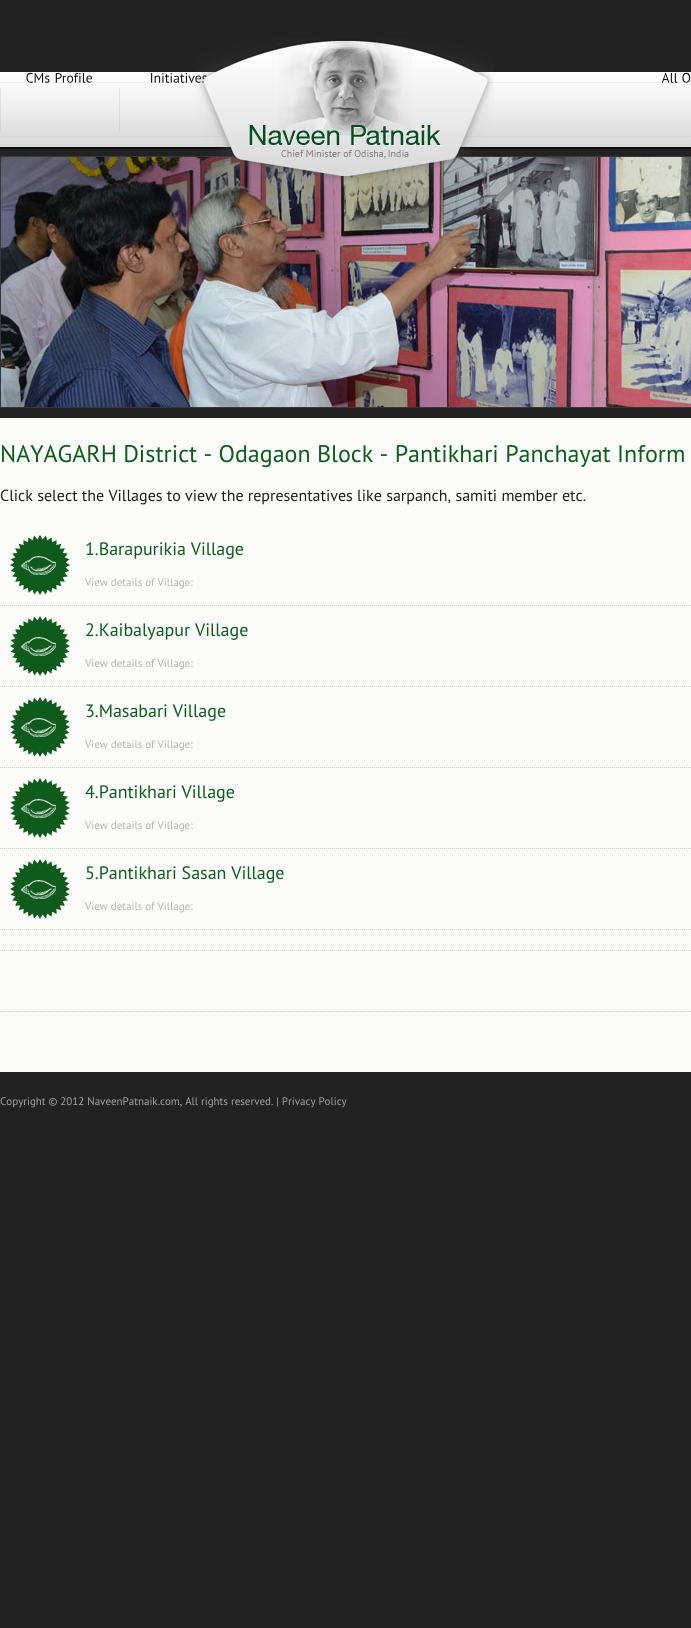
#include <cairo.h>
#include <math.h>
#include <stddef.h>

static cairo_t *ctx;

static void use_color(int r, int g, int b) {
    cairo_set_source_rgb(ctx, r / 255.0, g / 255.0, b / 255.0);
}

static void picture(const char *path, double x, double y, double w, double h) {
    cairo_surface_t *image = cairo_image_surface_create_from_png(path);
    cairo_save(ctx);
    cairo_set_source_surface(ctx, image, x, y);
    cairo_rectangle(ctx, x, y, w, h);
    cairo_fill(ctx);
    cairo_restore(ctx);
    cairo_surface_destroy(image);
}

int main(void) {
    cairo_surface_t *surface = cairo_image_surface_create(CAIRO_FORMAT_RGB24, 691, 1628);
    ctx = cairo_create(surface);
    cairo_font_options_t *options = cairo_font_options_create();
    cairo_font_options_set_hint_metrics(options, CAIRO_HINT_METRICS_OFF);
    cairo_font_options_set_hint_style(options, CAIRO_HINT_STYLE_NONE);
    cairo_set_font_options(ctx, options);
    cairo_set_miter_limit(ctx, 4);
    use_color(34, 34, 34);
    cairo_paint(ctx);
    picture("img1.png", 0, 72, 691, 78);
    picture("img5.png", 151, 73, 57, 10);
    picture("img9.png", 0, 156, 691, 252);
    picture("img2.png", 196, 38, 298, 150);
    picture("img3.png", 26, 72, 25, 11);
    picture("img4.png", 55, 73, 38, 10);
    picture("img6.png", 661, 73, 17, 10);
    picture("img7.png", 682, 72, 9, 11);
    picture("img8.png", 0, 88, 1, 43);
    picture("img8.png", 119, 88, 1, 43);
    use_color(251, 251, 249);
    cairo_rectangle(ctx, 0, 418, 691, 654);
    cairo_fill(ctx);
    cairo_select_font_face(ctx, "PT Sans", CAIRO_FONT_SLANT_NORMAL, CAIRO_FONT_WEIGHT_NORMAL);
    cairo_set_font_size(ctx, 24);
    use_color(15, 91, 30);
    cairo_move_to(ctx, 0, 462);
    cairo_show_text(ctx, "NAYAGARH District - Odagaon Block - Pantikhari Panchayat Inform");
    cairo_set_font_size(ctx, 16);
    use_color(29, 29, 29);
    cairo_move_to(ctx, 0, 501);
    cairo_show_text(ctx, "Click select the Villages to view the representatives like sarpanch, samiti member etc.");
    cairo_new_path(ctx);
    cairo_move_to(ctx, 0, 605.5);
    cairo_line_to(ctx, 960, 605.5);
    use_color(206, 206, 206);
    cairo_set_line_width(ctx, 1);
    cairo_set_dash(ctx, (double[]){1, 1}, 2, 0);
    cairo_stroke(ctx);
    picture("img10.png", 10, 535, 60, 60);
    cairo_set_font_size(ctx, 18);
    use_color(15, 91, 30);
    cairo_move_to(ctx, 85, 555);
    cairo_show_text(ctx, "1.Barapurikia Village");
    cairo_set_font_size(ctx, 11);
    use_color(178, 178, 178);
    cairo_move_to(ctx, 85, 586);
    cairo_show_text(ctx, "View details of Village:");
    cairo_new_path(ctx);
    cairo_move_to(ctx, 0, 686.5);
    cairo_line_to(ctx, 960, 686.5);
    use_color(206, 206, 206);
    cairo_stroke(ctx);
    picture("img10.png", 10, 616, 60, 60);
    cairo_set_font_size(ctx, 18);
    use_color(15, 91, 30);
    cairo_move_to(ctx, 85, 636);
    cairo_show_text(ctx, "2.Kaibalyapur Village");
    cairo_set_font_size(ctx, 11);
    use_color(178, 178, 178);
    cairo_move_to(ctx, 85, 667);
    cairo_show_text(ctx, "View details of Village:");
    cairo_new_path(ctx);
    cairo_move_to(ctx, 0, 767.5);
    cairo_line_to(ctx, 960, 767.5);
    use_color(206, 206, 206);
    cairo_stroke(ctx);
    picture("img10.png", 10, 697, 60, 60);
    cairo_set_font_size(ctx, 18);
    use_color(15, 91, 30);
    cairo_move_to(ctx, 85, 717);
    cairo_show_text(ctx, "3.Masabari Village");
    cairo_set_font_size(ctx, 11);
    use_color(178, 178, 178);
    cairo_move_to(ctx, 85, 748);
    cairo_show_text(ctx, "View details of Village:");
    cairo_new_path(ctx);
    cairo_move_to(ctx, 0, 848.5);
    cairo_line_to(ctx, 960, 848.5);
    use_color(206, 206, 206);
    cairo_stroke(ctx);
    picture("img10.png", 10, 778, 60, 60);
    cairo_set_font_size(ctx, 18);
    use_color(15, 91, 30);
    cairo_move_to(ctx, 85, 798);
    cairo_show_text(ctx, "4.Pantikhari Village");
    cairo_set_font_size(ctx, 11);
    use_color(178, 178, 178);
    cairo_move_to(ctx, 85, 829);
    cairo_show_text(ctx, "View details of Village:");
    cairo_new_path(ctx);
    cairo_move_to(ctx, 0, 929.5);
    cairo_line_to(ctx, 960, 929.5);
    use_color(206, 206, 206);
    cairo_stroke(ctx);
    picture("img10.png", 10, 859, 60, 60);
    cairo_set_font_size(ctx, 18);
    use_color(15, 91, 30);
    cairo_move_to(ctx, 85, 879);
    cairo_show_text(ctx, "5.Pantikhari Sasan Village");
    cairo_set_font_size(ctx, 11);
    use_color(178, 178, 178);
    cairo_move_to(ctx, 85, 910);
    cairo_show_text(ctx, "View details of Village:");
    cairo_new_path(ctx);
    cairo_move_to(ctx, 0, 950.5);
    cairo_line_to(ctx, 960, 950.5);
    use_color(206, 206, 206);
    cairo_stroke(ctx);
    cairo_new_path(ctx);
    cairo_move_to(ctx, 0, 1011.5);
    cairo_line_to(ctx, 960, 1011.5);
    cairo_stroke(ctx);
    use_color(164, 164, 164);
    cairo_move_to(ctx, 0, 1105);
    cairo_show_text(ctx, "Copyright © 2012 NaveenPatnaik.com, All rights reserved. | Privacy Policy");
    cairo_surface_write_to_png(surface, "result.png");
    cairo_font_options_destroy(options);
    cairo_destroy(ctx);
    cairo_surface_destroy(surface);
    return 0;
}
